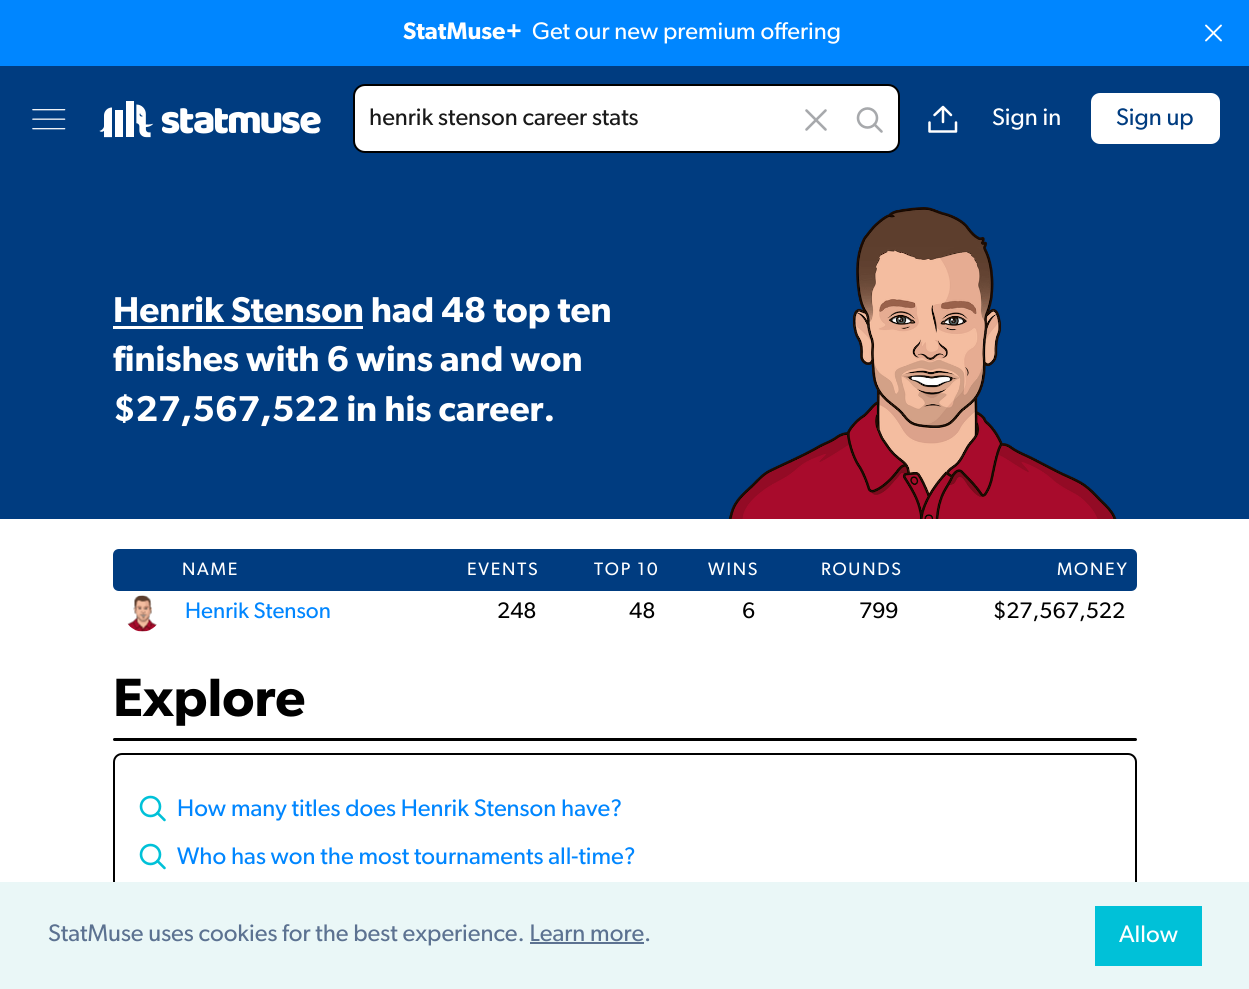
#include <cairo.h>
#include <math.h>
#include <stddef.h>

static cairo_t *ctx;

static void use_color(int r, int g, int b) {
    cairo_set_source_rgb(ctx, r / 255.0, g / 255.0, b / 255.0);
}

static void spaced_text(double x, double y, const char *s, double letter, double word) {
    cairo_move_to(ctx, x, y);
    while (*s) {
        char ch[5] = {0};
        int n = 0;
        do ch[n++] = *s++; while ((*s & 0xC0) == 0x80);
        cairo_show_text(ctx, ch);
        cairo_rel_move_to(ctx, letter + word * (*ch == ' '), 0);
    }
}

static void round_rect(double x, double y, double w, double h, double r) {
    cairo_new_sub_path(ctx);
    cairo_arc(ctx, x + w - r, y + h - r, r, 0, M_PI / 2);
    cairo_arc(ctx, x + r, y + h - r, r, M_PI / 2, M_PI);
    cairo_arc(ctx, x + r, y + r, r, M_PI, 1.5 * M_PI);
    cairo_arc(ctx, x + w - r, y + r, r, 1.5 * M_PI, 2 * M_PI);
    cairo_close_path(ctx);
}

static void picture(const char *path, double x, double y, double w, double h) {
    cairo_surface_t *image = cairo_image_surface_create_from_png(path);
    cairo_save(ctx);
    cairo_set_source_surface(ctx, image, x, y);
    cairo_rectangle(ctx, x, y, w, h);
    cairo_fill(ctx);
    cairo_restore(ctx);
    cairo_surface_destroy(image);
}

int main(void) {
    cairo_surface_t *surface = cairo_image_surface_create(CAIRO_FORMAT_RGB24, 1249, 989);
    ctx = cairo_create(surface);
    cairo_font_options_t *options = cairo_font_options_create();
    cairo_font_options_set_hint_metrics(options, CAIRO_HINT_METRICS_OFF);
    cairo_font_options_set_hint_style(options, CAIRO_HINT_STYLE_NONE);
    cairo_set_font_options(ctx, options);
    cairo_set_miter_limit(ctx, 4);
    use_color(255, 255, 255);
    cairo_paint(ctx);
    use_color(0, 134, 255);
    cairo_rectangle(ctx, 0, 0, 1249, 66);
    cairo_fill(ctx);
    cairo_select_font_face(ctx, "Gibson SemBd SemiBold", CAIRO_FONT_SLANT_NORMAL, CAIRO_FONT_WEIGHT_NORMAL);
    cairo_set_font_size(ctx, 24);
    use_color(255, 255, 255);
    cairo_move_to(ctx, 403, 39);
    cairo_show_text(ctx, "StatMuse+");
    cairo_select_font_face(ctx, "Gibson", CAIRO_FONT_SLANT_NORMAL, CAIRO_FONT_WEIGHT_NORMAL);
    cairo_move_to(ctx, 532, 39);
    cairo_show_text(ctx, "Get our new premium offering");
    cairo_new_path(ctx);
    cairo_move_to(ctx, 1206, 40.5);
    cairo_line_to(ctx, 1221, 25.5);
    cairo_move_to(ctx, 1206, 25.5);
    cairo_line_to(ctx, 1221, 40.5);
    cairo_set_line_width(ctx, 1.9);
    cairo_set_line_cap(ctx, CAIRO_LINE_CAP_ROUND);
    cairo_set_line_join(ctx, CAIRO_LINE_JOIN_ROUND);
    cairo_stroke(ctx);
    use_color(0, 60, 128);
    cairo_rectangle(ctx, 0, 66, 1249, 453);
    cairo_fill(ctx);
    picture("img1.png", 32, 109, 34, 21);
    picture("img2.png", 99, 101, 222, 37);
    use_color(255, 255, 255);
    round_rect(354, 85, 545, 67, 11);
    cairo_fill_preserve(ctx);
    use_color(0, 0, 0);
    cairo_set_line_width(ctx, 2);
    cairo_set_line_cap(ctx, CAIRO_LINE_CAP_BUTT);
    cairo_set_line_join(ctx, CAIRO_LINE_JOIN_MITER);
    cairo_stroke(ctx);
    use_color(25, 25, 25);
    cairo_move_to(ctx, 369, 125);
    cairo_show_text(ctx, "henrik stenson career stats");
    cairo_new_path(ctx);
    cairo_move_to(ctx, 806.5, 110.5);
    cairo_line_to(ctx, 825.5, 129.5);
    cairo_move_to(ctx, 825.5, 110.5);
    cairo_line_to(ctx, 806.5, 129.5);
    use_color(167, 169, 172);
    cairo_set_line_width(ctx, 2.6);
    cairo_set_line_cap(ctx, CAIRO_LINE_CAP_ROUND);
    cairo_set_line_join(ctx, CAIRO_LINE_JOIN_ROUND);
    cairo_stroke(ctx);
    cairo_arc(ctx, 867.5, 118, 9.5, 0, 2 * M_PI);
    cairo_set_line_cap(ctx, CAIRO_LINE_CAP_BUTT);
    cairo_set_line_join(ctx, CAIRO_LINE_JOIN_MITER);
    cairo_stroke(ctx);
    cairo_new_path(ctx);
    cairo_move_to(ctx, 881.5, 131.5);
    cairo_line_to(ctx, 874.5, 124.5);
    cairo_set_line_cap(ctx, CAIRO_LINE_CAP_ROUND);
    cairo_stroke(ctx);
    cairo_new_path(ctx);
    cairo_move_to(ctx, 934.5, 115);
    cairo_line_to(ctx, 943, 107);
    cairo_line_to(ctx, 951, 115);
    cairo_move_to(ctx, 943, 107);
    cairo_line_to(ctx, 943, 122);
    cairo_move_to(ctx, 929.5, 122.5);
    cairo_line_to(ctx, 929.5, 131.5);
    cairo_line_to(ctx, 956, 131.5);
    cairo_line_to(ctx, 956, 122.5);
    use_color(255, 255, 255);
    cairo_set_line_width(ctx, 2.5);
    cairo_set_line_join(ctx, CAIRO_LINE_JOIN_ROUND);
    cairo_stroke(ctx);
    cairo_move_to(ctx, 992, 125);
    cairo_show_text(ctx, "Sign in");
    round_rect(1092, 94, 127, 49, 8);
    cairo_fill_preserve(ctx);
    cairo_set_line_width(ctx, 2);
    cairo_set_line_cap(ctx, CAIRO_LINE_CAP_BUTT);
    cairo_set_line_join(ctx, CAIRO_LINE_JOIN_MITER);
    cairo_stroke(ctx);
    use_color(0, 60, 128);
    cairo_move_to(ctx, 1116, 125);
    cairo_show_text(ctx, "Sign up");
    use_color(255, 255, 255);
    cairo_rectangle(ctx, 113, 326, 250, 3);
    cairo_fill(ctx);
    cairo_select_font_face(ctx, "Gibson SemBd SemiBold", CAIRO_FONT_SLANT_NORMAL, CAIRO_FONT_WEIGHT_NORMAL);
    cairo_set_font_size(ctx, 36);
    cairo_move_to(ctx, 113, 322);
    cairo_show_text(ctx, "Henrik Stenson had 48 top ten");
    cairo_move_to(ctx, 113, 371);
    cairo_show_text(ctx, "finishes with 6 wins and won");
    cairo_move_to(ctx, 113, 421);
    cairo_show_text(ctx, "$27,567,522 in his career.");
    picture("img3.png", 728, 207, 389, 312);
    use_color(0, 60, 128);
    cairo_new_path(ctx);
    cairo_move_to(ctx, 119, 549);
    cairo_line_to(ctx, 173, 549);
    cairo_line_to(ctx, 173, 591);
    cairo_line_to(ctx, 119, 591);
    cairo_curve_to(ctx, 115.5, 591, 113, 588.5, 113, 585);
    cairo_line_to(ctx, 113, 555);
    cairo_curve_to(ctx, 113, 551.5, 115.5, 549, 119, 549);
    cairo_close_path(ctx);
    cairo_fill(ctx);
    cairo_rectangle(ctx, 173, 549, 738, 42);
    cairo_fill(ctx);
    cairo_select_font_face(ctx, "Gibson", CAIRO_FONT_SLANT_NORMAL, CAIRO_FONT_WEIGHT_NORMAL);
    cairo_set_font_size(ctx, 18);
    use_color(255, 255, 255);
    spaced_text(182, 575, "NAME", 1.75, 0);
    spaced_text(467, 575, "EVENTS", 1.75, 0);
    spaced_text(594, 575, "TOP 10", 1.75, 0);
    spaced_text(708, 575, "WINS", 1.75, 0);
    spaced_text(821, 575, "ROUNDS", 1.75, 0);
    use_color(0, 60, 128);
    cairo_new_path(ctx);
    cairo_move_to(ctx, 911, 549);
    cairo_line_to(ctx, 1131, 549);
    cairo_curve_to(ctx, 1134.5, 549, 1137, 551.5, 1137, 555);
    cairo_line_to(ctx, 1137, 585);
    cairo_curve_to(ctx, 1137, 588.5, 1134.5, 591, 1131, 591);
    cairo_line_to(ctx, 911, 591);
    cairo_close_path(ctx);
    cairo_fill(ctx);
    use_color(255, 255, 255);
    spaced_text(1057, 575, "MONEY", 1.75, 0);
    picture("img4.png", 127, 595, 30, 37);
    cairo_set_font_size(ctx, 22.5);
    use_color(0, 134, 255);
    cairo_move_to(ctx, 185, 618);
    cairo_show_text(ctx, "Henrik Stenson");
    use_color(0, 0, 0);
    cairo_move_to(ctx, 497, 618);
    cairo_show_text(ctx, "248");
    cairo_move_to(ctx, 629, 618);
    cairo_show_text(ctx, "48");
    cairo_move_to(ctx, 742, 618);
    cairo_show_text(ctx, "6");
    cairo_move_to(ctx, 859, 618);
    cairo_show_text(ctx, "799");
    cairo_move_to(ctx, 993, 618);
    cairo_show_text(ctx, "$27,567,522");
    cairo_select_font_face(ctx, "Gibson SemBd SemiBold", CAIRO_FONT_SLANT_NORMAL, CAIRO_FONT_WEIGHT_NORMAL);
    cairo_set_font_size(ctx, 54);
    cairo_move_to(ctx, 113, 716);
    cairo_show_text(ctx, "Explore");
    round_rect(113, 738, 1024, 3, 1.5);
    cairo_fill(ctx);
    round_rect(114, 754, 1022, 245, 8);
    cairo_stroke(ctx);
    cairo_arc(ctx, 150.5, 806.5, 9.5, 0, 2 * M_PI);
    use_color(0, 193, 216);
    cairo_set_line_width(ctx, 2.6);
    cairo_stroke(ctx);
    cairo_new_path(ctx);
    cairo_move_to(ctx, 164.5, 820);
    cairo_line_to(ctx, 157.5, 813);
    cairo_set_line_cap(ctx, CAIRO_LINE_CAP_ROUND);
    cairo_stroke(ctx);
    cairo_select_font_face(ctx, "Gibson", CAIRO_FONT_SLANT_NORMAL, CAIRO_FONT_WEIGHT_NORMAL);
    cairo_set_font_size(ctx, 24);
    use_color(0, 134, 255);
    cairo_move_to(ctx, 177, 816);
    cairo_show_text(ctx, "How many titles does Henrik Stenson have?");
    cairo_new_path(ctx);
    cairo_arc(ctx, 150.5, 854.5, 9.5, 0, 2 * M_PI);
    use_color(0, 193, 216);
    cairo_set_line_cap(ctx, CAIRO_LINE_CAP_BUTT);
    cairo_stroke(ctx);
    cairo_new_path(ctx);
    cairo_move_to(ctx, 164.5, 868);
    cairo_line_to(ctx, 157.5, 861);
    cairo_set_line_cap(ctx, CAIRO_LINE_CAP_ROUND);
    cairo_stroke(ctx);
    use_color(0, 134, 255);
    cairo_move_to(ctx, 177, 864);
    cairo_show_text(ctx, "Who has won the most tournaments all-time?");
    use_color(234, 247, 247);
    cairo_rectangle(ctx, 0, 882, 1249, 107);
    cairo_fill(ctx);
    use_color(92, 114, 145);
    cairo_move_to(ctx, 48, 941);
    cairo_show_text(ctx, "StatMuse uses cookies for the best experience. Learn more.");
    cairo_rectangle(ctx, 530, 942, 114, 2);
    cairo_fill(ctx);
    use_color(0, 193, 216);
    cairo_rectangle(ctx, 1095, 906, 107, 60);
    cairo_fill(ctx);
    use_color(255, 255, 255);
    cairo_move_to(ctx, 1119, 942);
    cairo_show_text(ctx, "Allow");
    cairo_surface_write_to_png(surface, "result.png");
    cairo_font_options_destroy(options);
    cairo_destroy(ctx);
    cairo_surface_destroy(surface);
    return 0;
}
